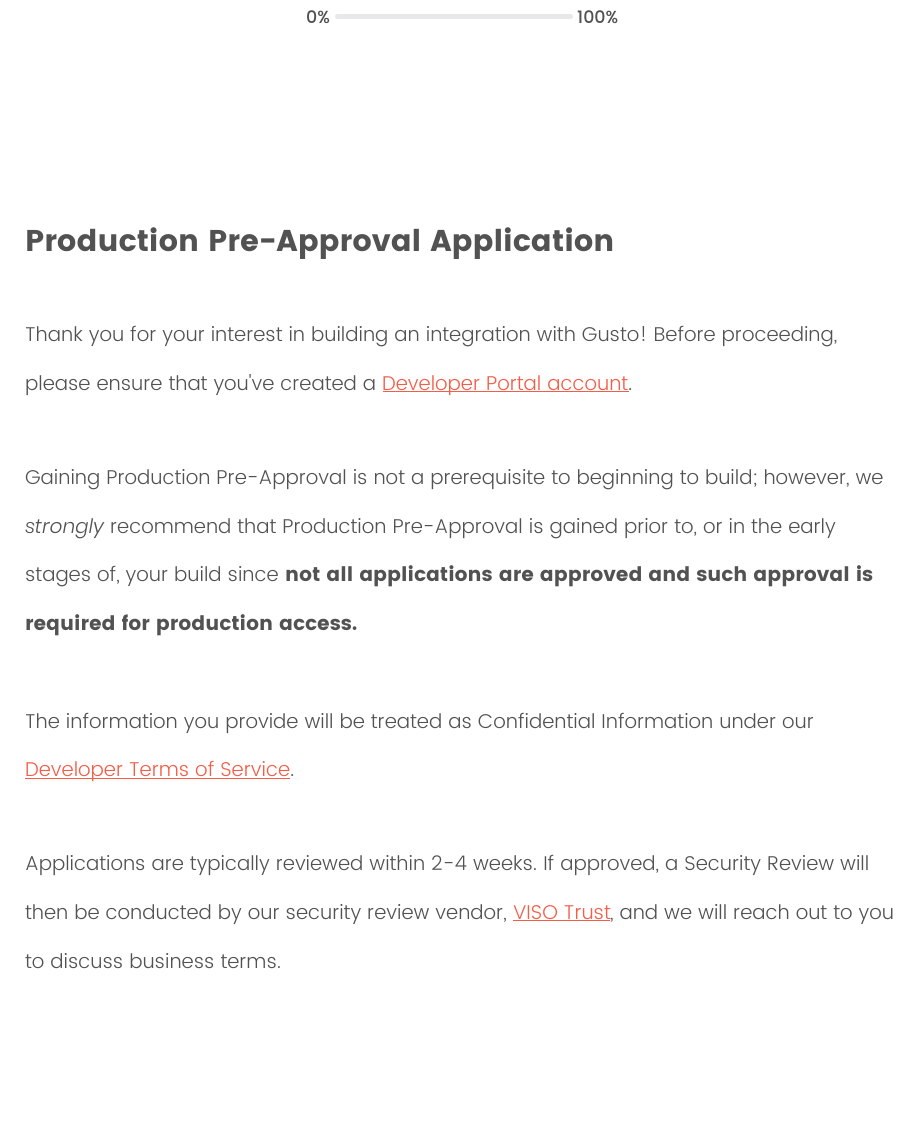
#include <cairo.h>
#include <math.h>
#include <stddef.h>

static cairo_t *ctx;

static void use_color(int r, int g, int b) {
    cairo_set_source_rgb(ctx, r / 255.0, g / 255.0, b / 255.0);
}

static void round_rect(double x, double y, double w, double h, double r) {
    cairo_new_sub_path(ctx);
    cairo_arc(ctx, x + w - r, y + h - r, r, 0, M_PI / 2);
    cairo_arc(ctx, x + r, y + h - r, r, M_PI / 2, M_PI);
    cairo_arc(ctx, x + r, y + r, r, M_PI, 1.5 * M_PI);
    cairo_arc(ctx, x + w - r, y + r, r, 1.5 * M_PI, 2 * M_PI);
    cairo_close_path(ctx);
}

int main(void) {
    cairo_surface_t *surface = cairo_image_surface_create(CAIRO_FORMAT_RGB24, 923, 1133);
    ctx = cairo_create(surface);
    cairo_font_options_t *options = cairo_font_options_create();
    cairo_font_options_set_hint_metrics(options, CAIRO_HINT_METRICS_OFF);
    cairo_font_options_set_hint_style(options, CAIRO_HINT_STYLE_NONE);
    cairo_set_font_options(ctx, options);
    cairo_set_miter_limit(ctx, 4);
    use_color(255, 255, 255);
    cairo_paint(ctx);
    cairo_select_font_face(ctx, "Poppins Medium", CAIRO_FONT_SLANT_NORMAL, CAIRO_FONT_WEIGHT_NORMAL);
    cairo_set_font_size(ctx, 17.5);
    use_color(82, 82, 82);
    cairo_move_to(ctx, 306, 23);
    cairo_show_text(ctx, "0%");
    use_color(232, 232, 235);
    round_rect(335, 14, 238, 5, 2.5);
    cairo_fill(ctx);
    use_color(82, 82, 82);
    cairo_move_to(ctx, 577, 23);
    cairo_show_text(ctx, "100%");
    cairo_select_font_face(ctx, "Poppins", CAIRO_FONT_SLANT_NORMAL, CAIRO_FONT_WEIGHT_BOLD);
    cairo_set_font_size(ctx, 30);
    cairo_move_to(ctx, 25, 251);
    cairo_show_text(ctx, "Production Pre-Approval Application");
    cairo_select_font_face(ctx, "Poppins Light", CAIRO_FONT_SLANT_NORMAL, CAIRO_FONT_WEIGHT_NORMAL);
    cairo_set_font_size(ctx, 20);
    cairo_move_to(ctx, 25, 341);
    cairo_show_text(ctx, "Thank you for your interest in building an integration with Gusto! Before proceeding,");
    cairo_move_to(ctx, 25, 390);
    cairo_show_text(ctx, "please ensure that you've created a");
    use_color(244, 93, 72);
    cairo_rectangle(ctx, 383, 391, 246, 1);
    cairo_fill(ctx);
    cairo_move_to(ctx, 382, 390);
    cairo_show_text(ctx, "Developer Portal account");
    use_color(82, 82, 82);
    cairo_move_to(ctx, 628, 390);
    cairo_show_text(ctx, ".");
    cairo_move_to(ctx, 25, 484);
    cairo_show_text(ctx, "Gaining Production Pre-Approval is not a prerequisite to beginning to build; however, we");
    cairo_select_font_face(ctx, "Poppins Light", CAIRO_FONT_SLANT_ITALIC, CAIRO_FONT_WEIGHT_NORMAL);
    cairo_move_to(ctx, 25, 533);
    cairo_show_text(ctx, "strongly");
    cairo_select_font_face(ctx, "Poppins Light", CAIRO_FONT_SLANT_NORMAL, CAIRO_FONT_WEIGHT_NORMAL);
    cairo_move_to(ctx, 110, 533);
    cairo_show_text(ctx, "recommend that Production Pre-Approval is gained prior to, or in the early");
    cairo_move_to(ctx, 25, 581);
    cairo_show_text(ctx, "stages of, your build since");
    cairo_select_font_face(ctx, "Poppins", CAIRO_FONT_SLANT_NORMAL, CAIRO_FONT_WEIGHT_BOLD);
    cairo_move_to(ctx, 285, 581);
    cairo_show_text(ctx, "not all applications are approved and such approval is");
    cairo_move_to(ctx, 25, 630);
    cairo_show_text(ctx, "required for production access.");
    cairo_select_font_face(ctx, "Poppins Light", CAIRO_FONT_SLANT_NORMAL, CAIRO_FONT_WEIGHT_NORMAL);
    cairo_move_to(ctx, 25, 728);
    cairo_show_text(ctx, "The information you provide will be treated as Confidential Information under our");
    use_color(244, 93, 72);
    cairo_rectangle(ctx, 25, 778, 265, 1);
    cairo_fill(ctx);
    cairo_move_to(ctx, 25, 776);
    cairo_show_text(ctx, "Developer Terms of Service");
    use_color(82, 82, 82);
    cairo_move_to(ctx, 290, 776);
    cairo_show_text(ctx, ".");
    cairo_move_to(ctx, 25, 870);
    cairo_show_text(ctx, "Applications are typically reviewed within 2-4 weeks. If approved, a Security Review will");
    cairo_move_to(ctx, 25, 919);
    cairo_show_text(ctx, "then be conducted by our security review vendor,");
    use_color(244, 93, 72);
    cairo_move_to(ctx, 513, 919);
    cairo_show_text(ctx, "VISO Trust");
    use_color(82, 82, 82);
    cairo_move_to(ctx, 610, 919);
    cairo_show_text(ctx, ", and we will reach out to you");
    use_color(244, 93, 72);
    cairo_rectangle(ctx, 513, 920, 97, 1);
    cairo_fill(ctx);
    use_color(82, 82, 82);
    cairo_move_to(ctx, 25, 968);
    cairo_show_text(ctx, "to discuss business terms.");
    cairo_surface_write_to_png(surface, "result.png");
    cairo_font_options_destroy(options);
    cairo_destroy(ctx);
    cairo_surface_destroy(surface);
    return 0;
}
